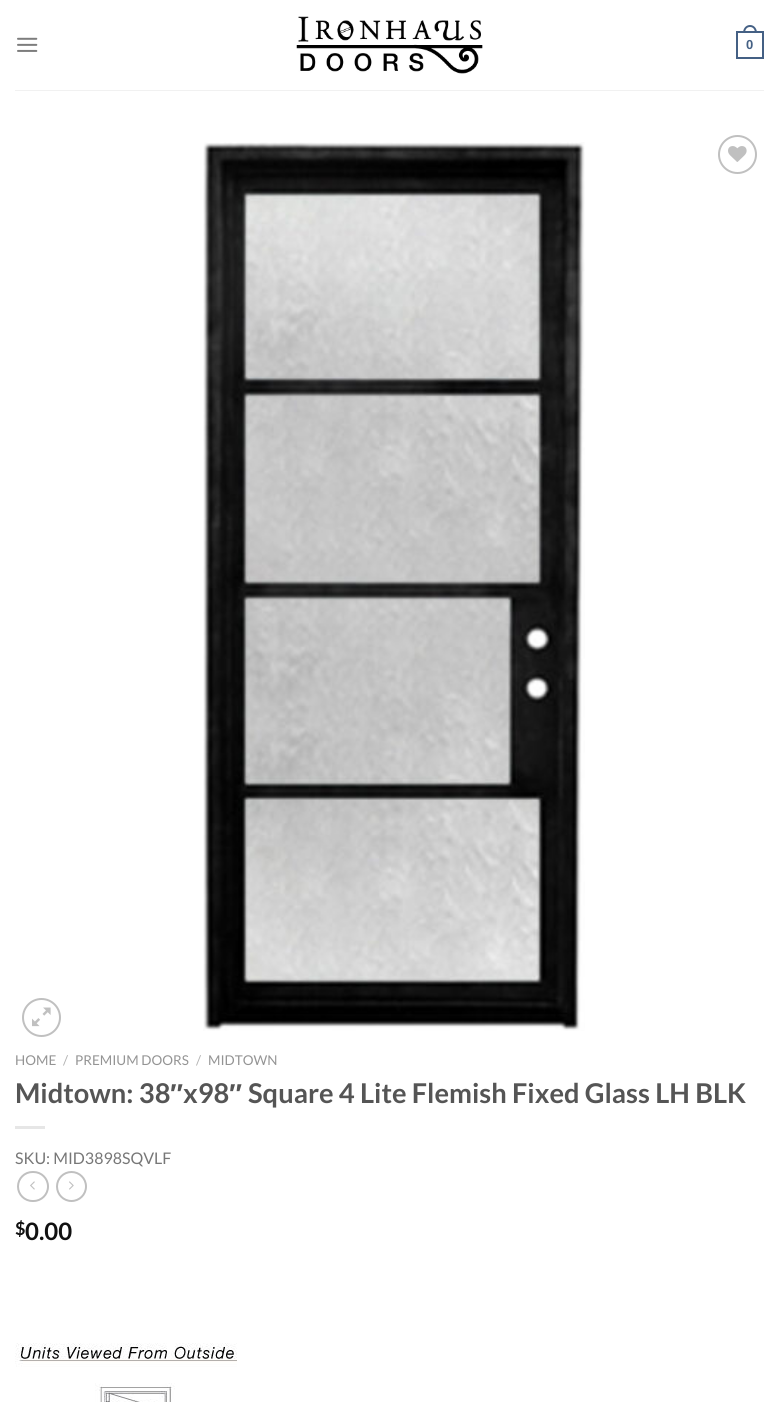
#include <cairo.h>
#include <math.h>
#include <stddef.h>

static cairo_t *ctx;

static void use_color(int r, int g, int b) {
    cairo_set_source_rgb(ctx, r / 255.0, g / 255.0, b / 255.0);
}

static void round_rect(double x, double y, double w, double h, double r) {
    cairo_new_sub_path(ctx);
    cairo_arc(ctx, x + w - r, y + h - r, r, 0, M_PI / 2);
    cairo_arc(ctx, x + r, y + h - r, r, M_PI / 2, M_PI);
    cairo_arc(ctx, x + r, y + r, r, M_PI, 1.5 * M_PI);
    cairo_arc(ctx, x + w - r, y + r, r, 1.5 * M_PI, 2 * M_PI);
    cairo_close_path(ctx);
}

static void picture(const char *path, double x, double y, double w, double h) {
    cairo_surface_t *image = cairo_image_surface_create_from_png(path);
    cairo_save(ctx);
    cairo_set_source_surface(ctx, image, x, y);
    cairo_rectangle(ctx, x, y, w, h);
    cairo_fill(ctx);
    cairo_restore(ctx);
    cairo_surface_destroy(image);
}

int main(void) {
    cairo_surface_t *surface = cairo_image_surface_create(CAIRO_FORMAT_RGB24, 779, 1402);
    ctx = cairo_create(surface);
    cairo_font_options_t *options = cairo_font_options_create();
    cairo_font_options_set_hint_metrics(options, CAIRO_HINT_METRICS_OFF);
    cairo_font_options_set_hint_style(options, CAIRO_HINT_STYLE_NONE);
    cairo_set_font_options(ctx, options);
    cairo_set_miter_limit(ctx, 4);
    use_color(255, 255, 255);
    cairo_paint(ctx);
    picture("img1.png", 17, 37, 21, 15);
    picture("img2.png", 296, 16, 187, 58);
    cairo_rectangle(ctx, 737, 32, 26, 26);
    use_color(68, 96, 132);
    cairo_stroke(ctx);
    cairo_set_fill_rule(ctx, CAIRO_FILL_RULE_EVEN_ODD);
    cairo_new_path(ctx);
    cairo_move_to(ctx, 750, 25);
    cairo_curve_to(ctx, 754.5, 25, 757, 29, 757, 33);
    cairo_line_to(ctx, 743, 33);
    cairo_curve_to(ctx, 743, 29, 745.5, 25, 750, 25);
    cairo_close_path(ctx);
    cairo_move_to(ctx, 750, 27);
    cairo_curve_to(ctx, 753.5, 27, 755, 30, 755, 33);
    cairo_line_to(ctx, 745, 33);
    cairo_curve_to(ctx, 745, 30, 746.5, 27, 750, 27);
    cairo_close_path(ctx);
    cairo_fill(ctx);
    cairo_select_font_face(ctx, "Liberation Sans", CAIRO_FONT_SLANT_NORMAL, CAIRO_FONT_WEIGHT_BOLD);
    cairo_set_font_size(ctx, 13);
    cairo_move_to(ctx, 746, 49);
    cairo_show_text(ctx, "0");
    use_color(241, 241, 241);
    cairo_rectangle(ctx, 15, 90, 749, 1);
    cairo_fill(ctx);
    cairo_arc(ctx, 41.5, 1017.5, 18.5, 0, 2 * M_PI);
    use_color(192, 192, 192);
    cairo_stroke(ctx);
    picture("img3.png", 32, 1007, 19, 20);
    picture("img4.png", 203, 142, 382, 889);
    cairo_arc(ctx, 737.5, 154.5, 18.5, 0, 2 * M_PI);
    cairo_stroke(ctx);
    picture("img5.png", 728, 146, 19, 16);
    cairo_select_font_face(ctx, "Lato", CAIRO_FONT_SLANT_NORMAL, CAIRO_FONT_WEIGHT_NORMAL);
    cairo_set_font_size(ctx, 13.5);
    use_color(148, 148, 148);
    cairo_move_to(ctx, 15, 1065);
    cairo_show_text(ctx, "HOME");
    use_color(178, 178, 178);
    cairo_move_to(ctx, 63, 1065);
    cairo_show_text(ctx, "/");
    use_color(148, 148, 148);
    cairo_move_to(ctx, 75, 1065);
    cairo_show_text(ctx, "PREMIUM DOORS");
    use_color(178, 178, 178);
    cairo_move_to(ctx, 196, 1065);
    cairo_show_text(ctx, "/");
    use_color(148, 148, 148);
    cairo_move_to(ctx, 208, 1065);
    cairo_show_text(ctx, "MIDTOWN");
    cairo_select_font_face(ctx, "Lato", CAIRO_FONT_SLANT_NORMAL, CAIRO_FONT_WEIGHT_BOLD);
    cairo_set_font_size(ctx, 27.25);
    use_color(85, 85, 85);
    cairo_move_to(ctx, 15, 1103);
    cairo_show_text(ctx, "Midtown: 38");
    cairo_select_font_face(ctx, "Liberation Sans", CAIRO_FONT_SLANT_NORMAL, CAIRO_FONT_WEIGHT_BOLD);
    cairo_move_to(ctx, 170, 1103);
    cairo_show_text(ctx, "″");
    cairo_select_font_face(ctx, "Lato", CAIRO_FONT_SLANT_NORMAL, CAIRO_FONT_WEIGHT_BOLD);
    cairo_move_to(ctx, 183, 1103);
    cairo_show_text(ctx, "x98");
    cairo_select_font_face(ctx, "Liberation Sans", CAIRO_FONT_SLANT_NORMAL, CAIRO_FONT_WEIGHT_BOLD);
    cairo_move_to(ctx, 229, 1103);
    cairo_show_text(ctx, "″");
    cairo_select_font_face(ctx, "Lato", CAIRO_FONT_SLANT_NORMAL, CAIRO_FONT_WEIGHT_BOLD);
    cairo_move_to(ctx, 248, 1103);
    cairo_show_text(ctx, "Square 4 Lite Flemish Fixed Glass LH BLK");
    use_color(230, 230, 230);
    cairo_rectangle(ctx, 15, 1126, 30, 3);
    cairo_fill(ctx);
    cairo_select_font_face(ctx, "Lato", CAIRO_FONT_SLANT_NORMAL, CAIRO_FONT_WEIGHT_NORMAL);
    cairo_set_font_size(ctx, 16);
    use_color(119, 119, 119);
    cairo_move_to(ctx, 15, 1164);
    cairo_show_text(ctx, "SKU: MID3898SQVLF");
    round_rect(18, 1172, 30, 29, 14.5);
    use_color(192, 192, 192);
    cairo_stroke(ctx);
    picture("img6.png", 30, 1181, 5, 9);
    cairo_arc(ctx, 71.5, 1186.5, 14.5, 0, 2 * M_PI);
    cairo_stroke(ctx);
    picture("img7.png", 69, 1181, 5, 9);
    cairo_select_font_face(ctx, "Lato", CAIRO_FONT_SLANT_NORMAL, CAIRO_FONT_WEIGHT_BOLD);
    cairo_set_font_size(ctx, 18);
    use_color(17, 17, 17);
    cairo_move_to(ctx, 15, 1235);
    cairo_show_text(ctx, "$");
    cairo_set_font_size(ctx, 24);
    cairo_move_to(ctx, 25, 1240);
    cairo_show_text(ctx, "0.00");
    picture("img8.png", 15, 1343, 222, 59);
    cairo_surface_write_to_png(surface, "result.png");
    cairo_font_options_destroy(options);
    cairo_destroy(ctx);
    cairo_surface_destroy(surface);
    return 0;
}
